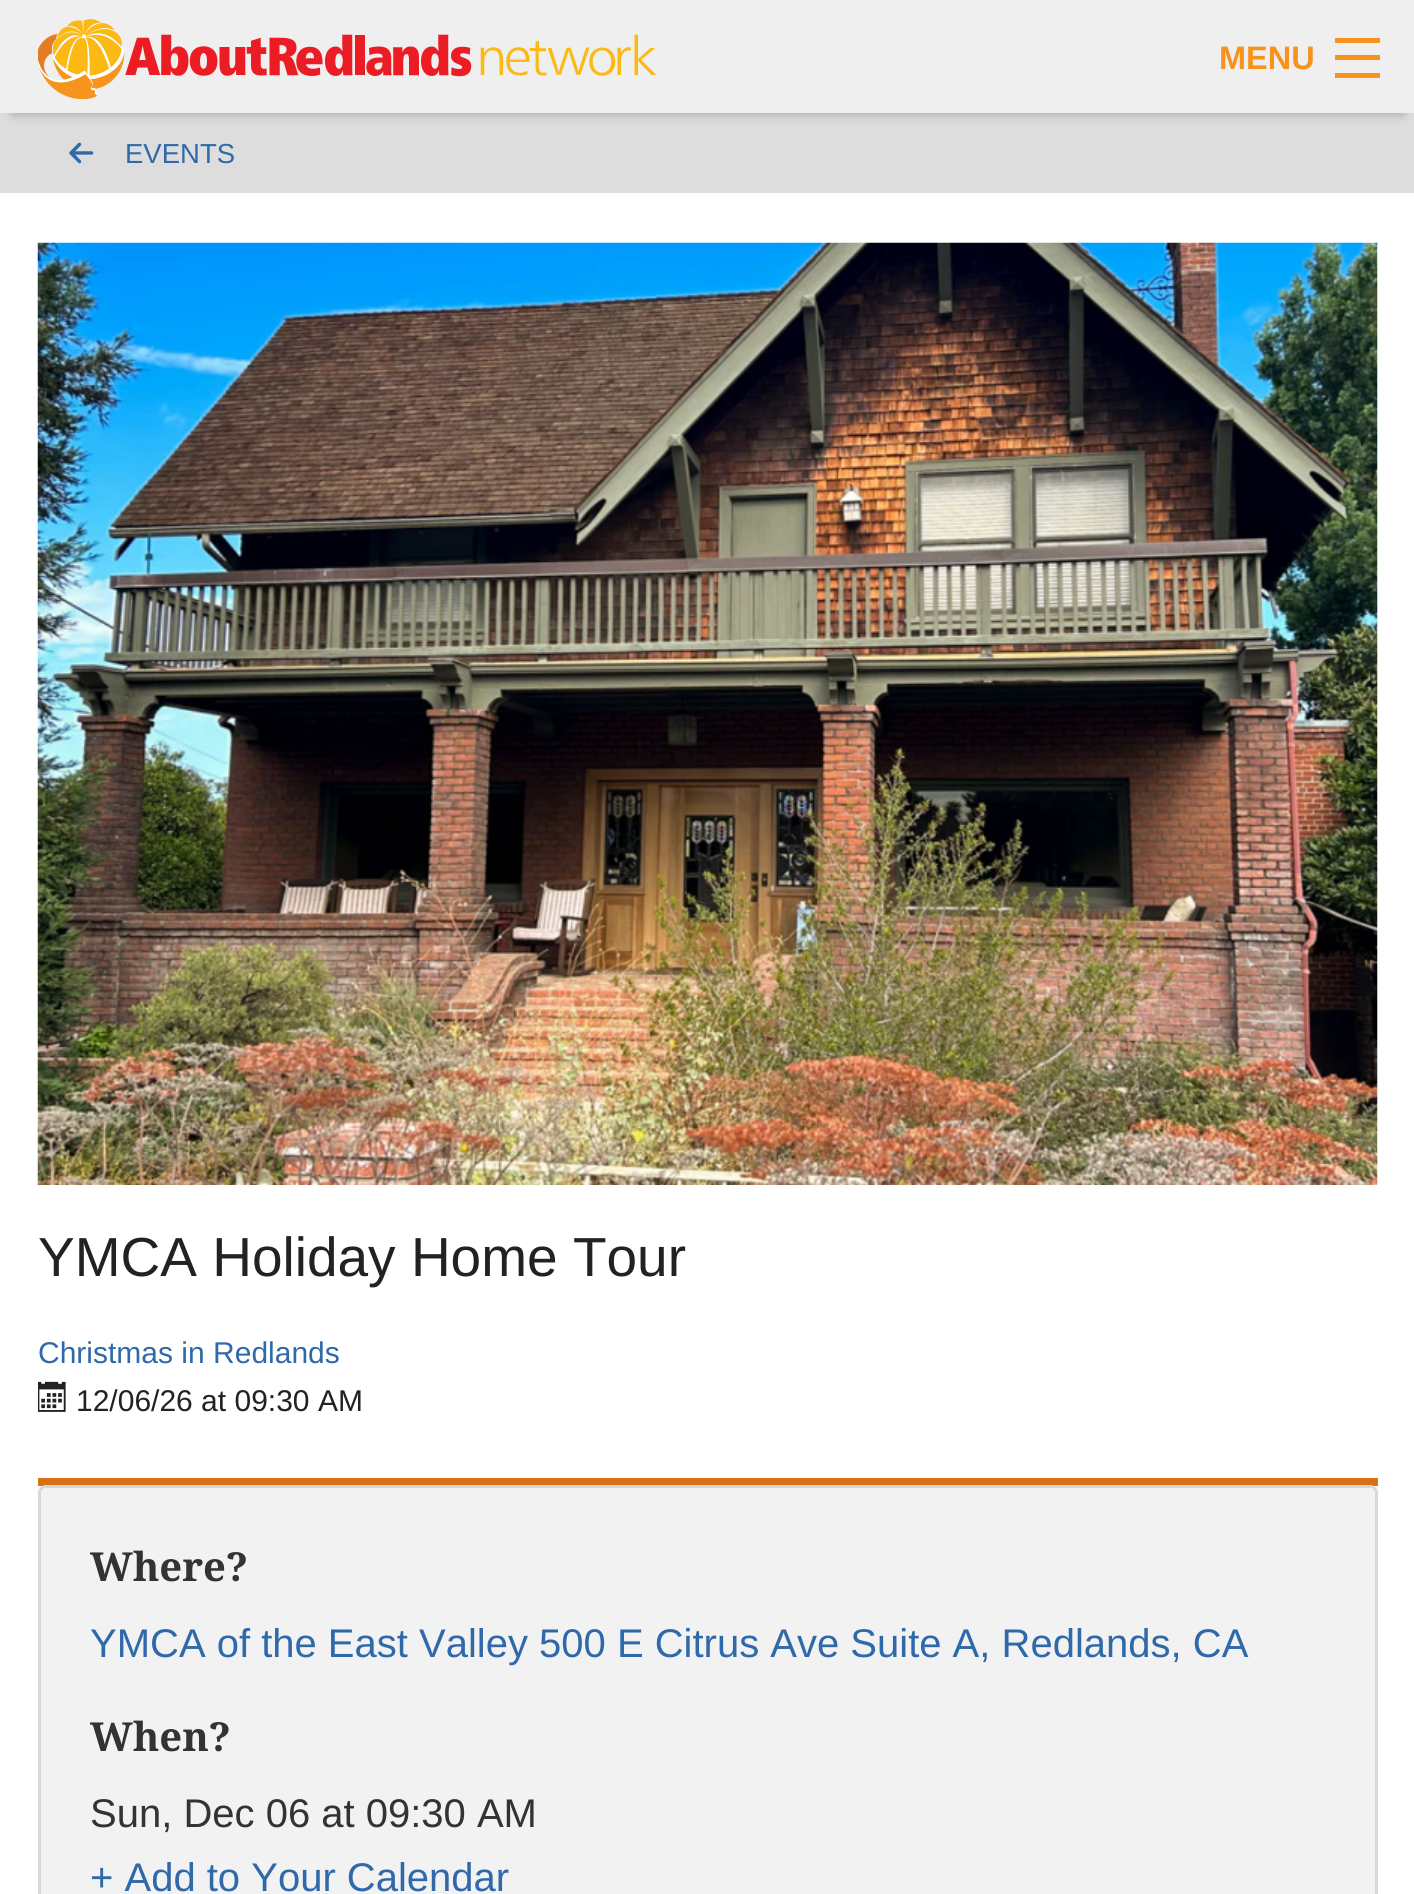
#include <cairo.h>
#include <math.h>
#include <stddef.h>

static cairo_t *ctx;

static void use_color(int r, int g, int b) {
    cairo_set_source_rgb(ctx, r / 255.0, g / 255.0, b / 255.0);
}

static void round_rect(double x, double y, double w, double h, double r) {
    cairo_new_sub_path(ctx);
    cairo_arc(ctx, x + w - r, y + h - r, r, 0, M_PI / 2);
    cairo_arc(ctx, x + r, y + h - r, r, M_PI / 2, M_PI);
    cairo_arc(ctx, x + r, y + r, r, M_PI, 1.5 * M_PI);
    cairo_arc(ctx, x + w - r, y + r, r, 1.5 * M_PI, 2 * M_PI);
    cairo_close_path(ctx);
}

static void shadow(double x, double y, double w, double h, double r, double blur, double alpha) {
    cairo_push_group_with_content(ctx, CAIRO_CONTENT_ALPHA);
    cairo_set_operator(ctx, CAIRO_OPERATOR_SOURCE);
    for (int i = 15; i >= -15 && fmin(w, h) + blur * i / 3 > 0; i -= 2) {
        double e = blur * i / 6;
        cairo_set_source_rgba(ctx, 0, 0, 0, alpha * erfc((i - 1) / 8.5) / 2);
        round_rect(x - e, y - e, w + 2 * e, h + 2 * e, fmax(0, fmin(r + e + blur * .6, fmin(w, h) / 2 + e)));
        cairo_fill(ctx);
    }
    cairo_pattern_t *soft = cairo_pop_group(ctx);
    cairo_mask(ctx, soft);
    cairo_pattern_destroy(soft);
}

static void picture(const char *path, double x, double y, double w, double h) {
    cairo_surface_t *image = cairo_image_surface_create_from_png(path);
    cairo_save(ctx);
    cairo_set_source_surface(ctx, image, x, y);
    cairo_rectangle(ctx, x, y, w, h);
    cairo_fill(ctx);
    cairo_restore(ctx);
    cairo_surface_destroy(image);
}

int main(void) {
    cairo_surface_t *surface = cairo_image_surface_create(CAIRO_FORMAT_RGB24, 1414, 1894);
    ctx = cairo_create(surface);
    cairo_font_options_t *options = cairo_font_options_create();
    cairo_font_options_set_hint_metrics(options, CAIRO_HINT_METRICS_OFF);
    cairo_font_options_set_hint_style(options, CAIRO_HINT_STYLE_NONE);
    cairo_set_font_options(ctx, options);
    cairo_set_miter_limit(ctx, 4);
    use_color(255, 255, 255);
    cairo_paint(ctx);
    use_color(221, 221, 221);
    cairo_rectangle(ctx, 0, 113, 1414, 80);
    cairo_fill(ctx);
    use_color(0, 0, 0);
    shadow(13, 25, 1390, 88, 0, 6, 0.3);
    use_color(239, 239, 239);
    cairo_rectangle(ctx, 0, 0, 1414, 113);
    cairo_fill(ctx);
    picture("img1.png", 38, 19, 619, 81);
    cairo_select_font_face(ctx, "Liberation Sans", CAIRO_FONT_SLANT_NORMAL, CAIRO_FONT_WEIGHT_BOLD);
    cairo_set_font_size(ctx, 32.5);
    use_color(247, 147, 29);
    cairo_move_to(ctx, 1219, 69);
    cairo_show_text(ctx, "MENU");
    cairo_rectangle(ctx, 1335, 73, 45, 5);
    cairo_fill(ctx);
    cairo_rectangle(ctx, 1335, 55, 45, 5);
    cairo_fill(ctx);
    cairo_rectangle(ctx, 1335, 38, 45, 5);
    cairo_fill(ctx);
    picture("img2.png", 69, 142, 25, 22);
    cairo_select_font_face(ctx, "Liberation Sans", CAIRO_FONT_SLANT_NORMAL, CAIRO_FONT_WEIGHT_NORMAL);
    cairo_set_font_size(ctx, 27.5);
    use_color(47, 105, 169);
    cairo_move_to(ctx, 125, 163);
    cairo_show_text(ctx, "EVENTS");
    use_color(216, 113, 20);
    cairo_rectangle(ctx, 38, 1478, 1340, 8);
    cairo_fill(ctx);
    picture("img3.png", 37, 242, 1341, 943);
    cairo_set_font_size(ctx, 55);
    use_color(34, 34, 34);
    cairo_move_to(ctx, 38, 1276);
    cairo_show_text(ctx, "YMCA Holiday Home Tour");
    cairo_set_font_size(ctx, 30);
    use_color(47, 105, 169);
    cairo_move_to(ctx, 38, 1363);
    cairo_show_text(ctx, "Christmas in Redlands");
    picture("img4.png", 38, 1381, 28, 31);
    use_color(34, 34, 34);
    cairo_move_to(ctx, 76, 1411);
    cairo_show_text(ctx, "12/06/26 at 09:30 AM");
    use_color(242, 242, 242);
    round_rect(39.5, 1486.5, 1337, 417, 6.5);
    cairo_fill_preserve(ctx);
    use_color(216, 216, 216);
    cairo_set_line_width(ctx, 3);
    cairo_stroke(ctx);
    cairo_select_font_face(ctx, "Droid Serif", CAIRO_FONT_SLANT_NORMAL, CAIRO_FONT_WEIGHT_BOLD);
    cairo_set_font_size(ctx, 40);
    use_color(51, 51, 51);
    cairo_move_to(ctx, 90, 1581);
    cairo_show_text(ctx, "Where?");
    cairo_select_font_face(ctx, "Liberation Sans", CAIRO_FONT_SLANT_NORMAL, CAIRO_FONT_WEIGHT_NORMAL);
    use_color(47, 105, 169);
    cairo_move_to(ctx, 90, 1657);
    cairo_show_text(ctx, "YMCA of the East Valley 500 E Citrus Ave Suite A, Redlands, CA");
    cairo_select_font_face(ctx, "Droid Serif", CAIRO_FONT_SLANT_NORMAL, CAIRO_FONT_WEIGHT_BOLD);
    use_color(51, 51, 51);
    cairo_move_to(ctx, 90, 1751);
    cairo_show_text(ctx, "When?");
    cairo_select_font_face(ctx, "Liberation Sans", CAIRO_FONT_SLANT_NORMAL, CAIRO_FONT_WEIGHT_NORMAL);
    cairo_move_to(ctx, 90, 1827);
    cairo_show_text(ctx, "Sun, Dec 06 at 09:30 AM");
    use_color(47, 105, 169);
    cairo_move_to(ctx, 90, 1891);
    cairo_show_text(ctx, "+ Add to Your Calendar");
    cairo_surface_write_to_png(surface, "result.png");
    cairo_font_options_destroy(options);
    cairo_destroy(ctx);
    cairo_surface_destroy(surface);
    return 0;
}
